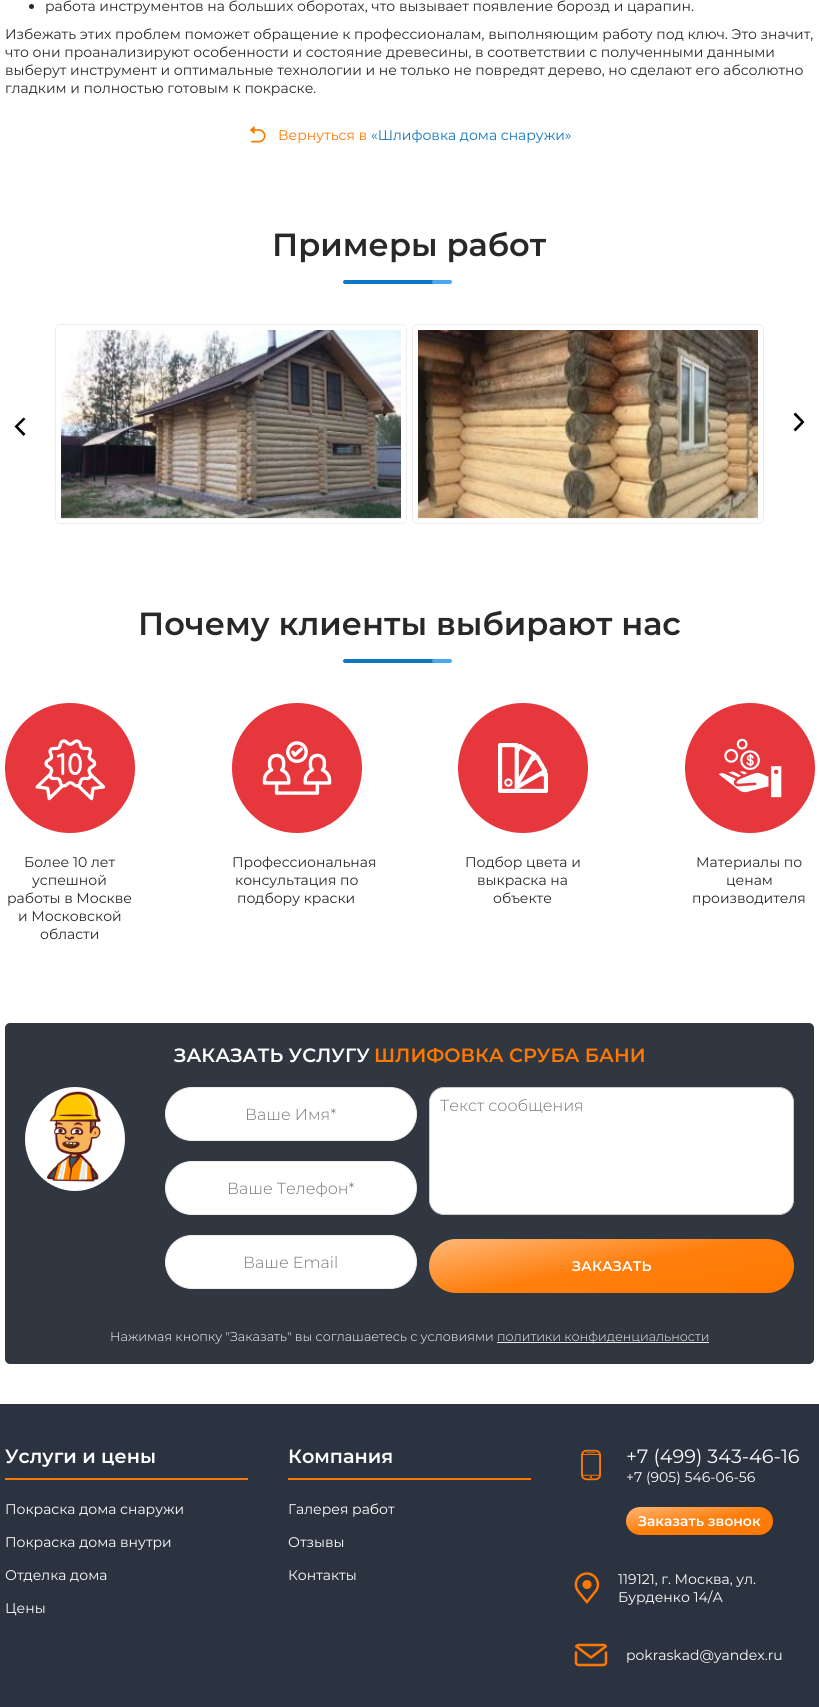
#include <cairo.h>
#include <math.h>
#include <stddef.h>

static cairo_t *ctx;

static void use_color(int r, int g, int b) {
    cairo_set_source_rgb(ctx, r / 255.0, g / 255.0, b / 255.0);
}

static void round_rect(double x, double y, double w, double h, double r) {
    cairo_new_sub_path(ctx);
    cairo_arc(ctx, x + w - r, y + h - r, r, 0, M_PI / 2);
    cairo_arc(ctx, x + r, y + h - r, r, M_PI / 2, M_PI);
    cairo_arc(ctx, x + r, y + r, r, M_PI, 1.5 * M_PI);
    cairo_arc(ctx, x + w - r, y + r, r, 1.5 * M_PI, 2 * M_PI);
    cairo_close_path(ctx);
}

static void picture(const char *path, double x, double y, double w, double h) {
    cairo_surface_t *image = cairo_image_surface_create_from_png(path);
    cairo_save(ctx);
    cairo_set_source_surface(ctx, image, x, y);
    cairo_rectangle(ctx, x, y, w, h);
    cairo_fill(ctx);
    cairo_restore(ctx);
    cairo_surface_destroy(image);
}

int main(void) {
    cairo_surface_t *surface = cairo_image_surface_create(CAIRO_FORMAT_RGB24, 819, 1707);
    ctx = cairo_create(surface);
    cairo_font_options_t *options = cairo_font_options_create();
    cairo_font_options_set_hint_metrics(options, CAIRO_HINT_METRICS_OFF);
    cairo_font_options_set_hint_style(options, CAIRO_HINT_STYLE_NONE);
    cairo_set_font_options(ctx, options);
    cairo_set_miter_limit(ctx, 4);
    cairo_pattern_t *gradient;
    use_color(255, 255, 255);
    cairo_paint(ctx);
    use_color(40, 40, 40);
    cairo_arc(ctx, 31.5, 6.5, 2.5, 0, 2 * M_PI);
    cairo_fill(ctx);
    cairo_select_font_face(ctx, "Montserrat", CAIRO_FONT_SLANT_NORMAL, CAIRO_FONT_WEIGHT_NORMAL);
    cairo_set_font_size(ctx, 14);
    cairo_move_to(ctx, 45, 11);
    cairo_show_text(ctx, "работа инструментов на больших оборотах, что вызывает появление борозд и царапин.");
    cairo_move_to(ctx, 5, 39);
    cairo_show_text(ctx, "Избежать этих проблем поможет обращение к профессионалам, выполняющим работу под ключ. Это значит,");
    cairo_move_to(ctx, 5, 57);
    cairo_show_text(ctx, "что они проанализируют особенности и состояние древесины, в соответствии с полученными данными");
    cairo_move_to(ctx, 5, 75);
    cairo_show_text(ctx, "выберут инструмент и оптимальные технологии и не только не повредят дерево, но сделают его абсолютно");
    cairo_move_to(ctx, 5, 93);
    cairo_show_text(ctx, "гладким и полностью готовым к покраске.");
    picture("img1.png", 249, 126, 17, 17);
    use_color(255, 120, 0);
    cairo_move_to(ctx, 278, 140);
    cairo_show_text(ctx, "Вернуться в");
    use_color(15, 118, 197);
    cairo_move_to(ctx, 371, 140);
    cairo_show_text(ctx, "«Шлифовка дома снаружи»");
    cairo_select_font_face(ctx, "Montserrat SemiBold", CAIRO_FONT_SLANT_NORMAL, CAIRO_FONT_WEIGHT_NORMAL);
    cairo_set_font_size(ctx, 32);
    use_color(40, 40, 40);
    cairo_move_to(ctx, 272, 256);
    cairo_show_text(ctx, "Примеры работ");
    use_color(15, 118, 197);
    round_rect(343, 280, 100, 4, 2);
    cairo_fill(ctx);
    use_color(73, 168, 241);
    round_rect(432, 280, 20, 4, 2);
    cairo_fill(ctx);
    use_color(0, 0, 0);
    cairo_new_path(ctx);
    cairo_move_to(ctx, 25.5, 434);
    cairo_line_to(ctx, 23.5, 436);
    cairo_line_to(ctx, 14.5, 426.5);
    cairo_line_to(ctx, 23.5, 417.5);
    cairo_line_to(ctx, 25.5, 419);
    cairo_line_to(ctx, 18, 426.5);
    cairo_close_path(ctx);
    cairo_fill(ctx);
    round_rect(55.5, 324.5, 351, 199, 4.5);
    use_color(237, 237, 237);
    cairo_set_line_width(ctx, 1);
    cairo_stroke(ctx);
    picture("img2.png", 61, 330, 340, 189);
    round_rect(412.5, 324.5, 351, 199, 4.5);
    cairo_stroke(ctx);
    picture("img3.png", 418, 330, 340, 189);
    use_color(0, 0, 0);
    cairo_new_path(ctx);
    cairo_move_to(ctx, 793.5, 414.5);
    cairo_line_to(ctx, 795.5, 412.5);
    cairo_line_to(ctx, 804.5, 422);
    cairo_line_to(ctx, 795.5, 431.5);
    cairo_line_to(ctx, 793.5, 429.5);
    cairo_line_to(ctx, 801, 422);
    cairo_close_path(ctx);
    cairo_fill(ctx);
    use_color(40, 40, 40);
    cairo_move_to(ctx, 138, 635);
    cairo_show_text(ctx, "Почему клиенты выбирают нас");
    use_color(15, 118, 197);
    round_rect(343, 659, 100, 4, 2);
    cairo_fill(ctx);
    use_color(73, 168, 241);
    round_rect(432, 659, 20, 4, 2);
    cairo_fill(ctx);
    use_color(230, 55, 61);
    cairo_arc(ctx, 70, 768, 65, 0, 2 * M_PI);
    cairo_fill(ctx);
    picture("img4.png", 35, 739, 70, 62);
    cairo_select_font_face(ctx, "Comfortaa", CAIRO_FONT_SLANT_NORMAL, CAIRO_FONT_WEIGHT_BOLD);
    cairo_set_font_size(ctx, 28);
    use_color(255, 255, 255);
    cairo_move_to(ctx, 56, 775);
    cairo_show_text(ctx, "10");
    cairo_select_font_face(ctx, "Montserrat", CAIRO_FONT_SLANT_NORMAL, CAIRO_FONT_WEIGHT_NORMAL);
    cairo_set_font_size(ctx, 14);
    use_color(40, 40, 40);
    cairo_move_to(ctx, 24, 867);
    cairo_show_text(ctx, "Более 10 лет");
    cairo_move_to(ctx, 32, 885);
    cairo_show_text(ctx, "успешной");
    cairo_move_to(ctx, 7, 903);
    cairo_show_text(ctx, "работы в Москве");
    cairo_move_to(ctx, 18, 921);
    cairo_show_text(ctx, "и Московской");
    cairo_move_to(ctx, 40, 939);
    cairo_show_text(ctx, "области");
    use_color(230, 55, 61);
    cairo_new_path(ctx);
    cairo_arc(ctx, 297, 768, 65, 0, 2 * M_PI);
    cairo_fill(ctx);
    picture("img5.png", 262, 741, 70, 54);
    use_color(40, 40, 40);
    cairo_move_to(ctx, 232, 867);
    cairo_show_text(ctx, "Профессиональная");
    cairo_move_to(ctx, 235, 885);
    cairo_show_text(ctx, "консультация по");
    cairo_move_to(ctx, 237, 903);
    cairo_show_text(ctx, "подбору краски");
    use_color(230, 55, 61);
    cairo_new_path(ctx);
    cairo_arc(ctx, 523, 768, 65, 0, 2 * M_PI);
    cairo_fill(ctx);
    picture("img6.png", 498, 743, 50, 50);
    use_color(40, 40, 40);
    cairo_move_to(ctx, 465, 867);
    cairo_show_text(ctx, "Подбор цвета и");
    cairo_move_to(ctx, 477, 885);
    cairo_show_text(ctx, "выкраска на");
    cairo_move_to(ctx, 493, 903);
    cairo_show_text(ctx, "объекте");
    use_color(230, 55, 61);
    cairo_new_path(ctx);
    cairo_arc(ctx, 750, 768, 65, 0, 2 * M_PI);
    cairo_fill(ctx);
    picture("img7.png", 718, 738, 64, 60);
    use_color(40, 40, 40);
    cairo_move_to(ctx, 696, 867);
    cairo_show_text(ctx, "Материалы по");
    cairo_move_to(ctx, 726, 885);
    cairo_show_text(ctx, "ценам");
    cairo_move_to(ctx, 692, 903);
    cairo_show_text(ctx, "производителя");
    use_color(48, 55, 65);
    round_rect(5, 1023, 809, 341, 5);
    cairo_fill(ctx);
    cairo_select_font_face(ctx, "Montserrat SemiBold", CAIRO_FONT_SLANT_NORMAL, CAIRO_FONT_WEIGHT_NORMAL);
    cairo_set_font_size(ctx, 19.25);
    use_color(255, 255, 255);
    cairo_move_to(ctx, 174, 1062);
    cairo_show_text(ctx, "ЗАКАЗАТЬ УСЛУГУ");
    use_color(255, 120, 0);
    cairo_move_to(ctx, 374, 1062);
    cairo_show_text(ctx, "ШЛИФОВКА СРУБА БАНИ");
    use_color(255, 255, 255);
    cairo_new_path(ctx);
    cairo_move_to(ctx, 75, 1087);
    cairo_curve_to(ctx, 102.5, 1087, 125, 1110.5, 125, 1139);
    cairo_curve_to(ctx, 125, 1167.5, 102.5, 1191, 75, 1191);
    cairo_curve_to(ctx, 47.5, 1191, 25, 1167.5, 25, 1139);
    cairo_curve_to(ctx, 25, 1110.5, 47.5, 1087, 75, 1087);
    cairo_close_path(ctx);
    cairo_fill(ctx);
    picture("img8.png", 47, 1091, 54, 91);
    round_rect(165.5, 1087.5, 251, 53, 26.5);
    cairo_fill_preserve(ctx);
    use_color(237, 237, 237);
    cairo_stroke(ctx);
    cairo_select_font_face(ctx, "Montserrat Light", CAIRO_FONT_SLANT_NORMAL, CAIRO_FONT_WEIGHT_NORMAL);
    cairo_set_font_size(ctx, 16);
    use_color(117, 117, 117);
    cairo_move_to(ctx, 245, 1120);
    cairo_show_text(ctx, "Ваше Имя*");
    use_color(255, 255, 255);
    round_rect(165.5, 1161.5, 251, 53, 26.5);
    cairo_fill_preserve(ctx);
    use_color(237, 237, 237);
    cairo_stroke(ctx);
    use_color(117, 117, 117);
    cairo_move_to(ctx, 227, 1194);
    cairo_show_text(ctx, "Ваше Телефон*");
    use_color(255, 255, 255);
    round_rect(165.5, 1235.5, 251, 53, 26.5);
    cairo_fill_preserve(ctx);
    use_color(237, 237, 237);
    cairo_stroke(ctx);
    use_color(117, 117, 117);
    cairo_move_to(ctx, 243, 1268);
    cairo_show_text(ctx, "Ваше Email");
    use_color(255, 255, 255);
    round_rect(429.5, 1087.5, 364, 127, 14.5);
    cairo_fill_preserve(ctx);
    use_color(204, 204, 204);
    cairo_stroke(ctx);
    use_color(117, 117, 117);
    cairo_move_to(ctx, 440, 1111);
    cairo_show_text(ctx, "Текст сообщения");
    gradient = cairo_pattern_create_linear(622, 1323, 601, 1209);
    cairo_pattern_add_color_stop_rgba(gradient, 0, 1, 0.471, 0, 1);
    cairo_pattern_add_color_stop_rgba(gradient, 0.5, 1, 0.498, 0.055, 1);
    cairo_pattern_add_color_stop_rgba(gradient, 1, 1, 0.714, 0.459, 1);
    cairo_set_source(ctx, gradient);
    cairo_pattern_destroy(gradient);
    round_rect(429, 1239, 365, 54, 27);
    cairo_fill(ctx);
    cairo_select_font_face(ctx, "Montserrat SemiBold", CAIRO_FONT_SLANT_NORMAL, CAIRO_FONT_WEIGHT_NORMAL);
    cairo_set_font_size(ctx, 14);
    use_color(255, 255, 255);
    cairo_move_to(ctx, 572, 1271);
    cairo_show_text(ctx, "ЗАКАЗАТЬ");
    cairo_select_font_face(ctx, "Montserrat Light", CAIRO_FONT_SLANT_NORMAL, CAIRO_FONT_WEIGHT_NORMAL);
    cairo_set_font_size(ctx, 12.8);
    cairo_move_to(ctx, 110, 1341);
    cairo_show_text(ctx, "Нажимая кнопку \"Заказать\" вы соглашаетесь с условиями");
    use_color(241, 241, 241);
    cairo_rectangle(ctx, 497, 1342, 212, 1);
    cairo_fill(ctx);
    cairo_move_to(ctx, 497, 1341);
    cairo_show_text(ctx, "политики конфиденциальности");
    use_color(44, 51, 64);
    cairo_rectangle(ctx, 0, 1404, 819, 303);
    cairo_fill(ctx);
    use_color(255, 120, 0);
    cairo_rectangle(ctx, 5, 1478, 243, 2);
    cairo_fill(ctx);
    cairo_select_font_face(ctx, "Montserrat SemiBold", CAIRO_FONT_SLANT_NORMAL, CAIRO_FONT_WEIGHT_NORMAL);
    cairo_set_font_size(ctx, 19.25);
    use_color(255, 255, 255);
    cairo_move_to(ctx, 5, 1463);
    cairo_show_text(ctx, "Услуги и цены");
    cairo_select_font_face(ctx, "Montserrat", CAIRO_FONT_SLANT_NORMAL, CAIRO_FONT_WEIGHT_NORMAL);
    cairo_set_font_size(ctx, 14);
    cairo_move_to(ctx, 5, 1514);
    cairo_show_text(ctx, "Покраска дома снаружи");
    cairo_move_to(ctx, 5, 1547);
    cairo_show_text(ctx, "Покраска дома внутри");
    cairo_move_to(ctx, 5, 1580);
    cairo_show_text(ctx, "Отделка дома");
    cairo_move_to(ctx, 5, 1613);
    cairo_show_text(ctx, "Цены");
    use_color(255, 120, 0);
    cairo_rectangle(ctx, 288, 1478, 243, 2);
    cairo_fill(ctx);
    cairo_select_font_face(ctx, "Montserrat SemiBold", CAIRO_FONT_SLANT_NORMAL, CAIRO_FONT_WEIGHT_NORMAL);
    cairo_set_font_size(ctx, 19.25);
    use_color(255, 255, 255);
    cairo_move_to(ctx, 288, 1463);
    cairo_show_text(ctx, "Компания");
    cairo_select_font_face(ctx, "Montserrat", CAIRO_FONT_SLANT_NORMAL, CAIRO_FONT_WEIGHT_NORMAL);
    cairo_set_font_size(ctx, 14);
    cairo_move_to(ctx, 288, 1514);
    cairo_show_text(ctx, "Галерея работ");
    cairo_move_to(ctx, 288, 1547);
    cairo_show_text(ctx, "Отзывы");
    cairo_move_to(ctx, 288, 1580);
    cairo_show_text(ctx, "Контакты");
    picture("img9.png", 581, 1449, 20, 32);
    cairo_set_font_size(ctx, 19.25);
    cairo_move_to(ctx, 626, 1463);
    cairo_show_text(ctx, "+7 (499) 343-46-16");
    cairo_set_font_size(ctx, 14);
    cairo_move_to(ctx, 626, 1482);
    cairo_show_text(ctx, "+7 (905) 546-06-56");
    gradient = cairo_pattern_create_linear(704, 1547, 695, 1495);
    cairo_pattern_add_color_stop_rgba(gradient, 0, 1, 0.471, 0, 1);
    cairo_pattern_add_color_stop_rgba(gradient, 0.5, 1, 0.498, 0.055, 1);
    cairo_pattern_add_color_stop_rgba(gradient, 1, 1, 0.714, 0.459, 1);
    cairo_set_source(ctx, gradient);
    cairo_pattern_destroy(gradient);
    round_rect(626, 1507, 147, 28, 14);
    cairo_fill(ctx);
    cairo_select_font_face(ctx, "Montserrat SemiBold", CAIRO_FONT_SLANT_NORMAL, CAIRO_FONT_WEIGHT_NORMAL);
    use_color(255, 255, 255);
    cairo_move_to(ctx, 638, 1526);
    cairo_show_text(ctx, "Заказать звонок");
    picture("img10.png", 574, 1572, 26, 32);
    cairo_select_font_face(ctx, "Montserrat", CAIRO_FONT_SLANT_NORMAL, CAIRO_FONT_WEIGHT_NORMAL);
    cairo_move_to(ctx, 618, 1584);
    cairo_show_text(ctx, "119121, г. Москва, ул.");
    cairo_move_to(ctx, 618, 1602);
    cairo_show_text(ctx, "Бурденко 14/А");
    picture("img11.png", 574, 1643, 34, 24);
    cairo_move_to(ctx, 626, 1660);
    cairo_show_text(ctx, "pokraskad@yandex.ru");
    cairo_surface_write_to_png(surface, "result.png");
    cairo_font_options_destroy(options);
    cairo_destroy(ctx);
    cairo_surface_destroy(surface);
    return 0;
}
